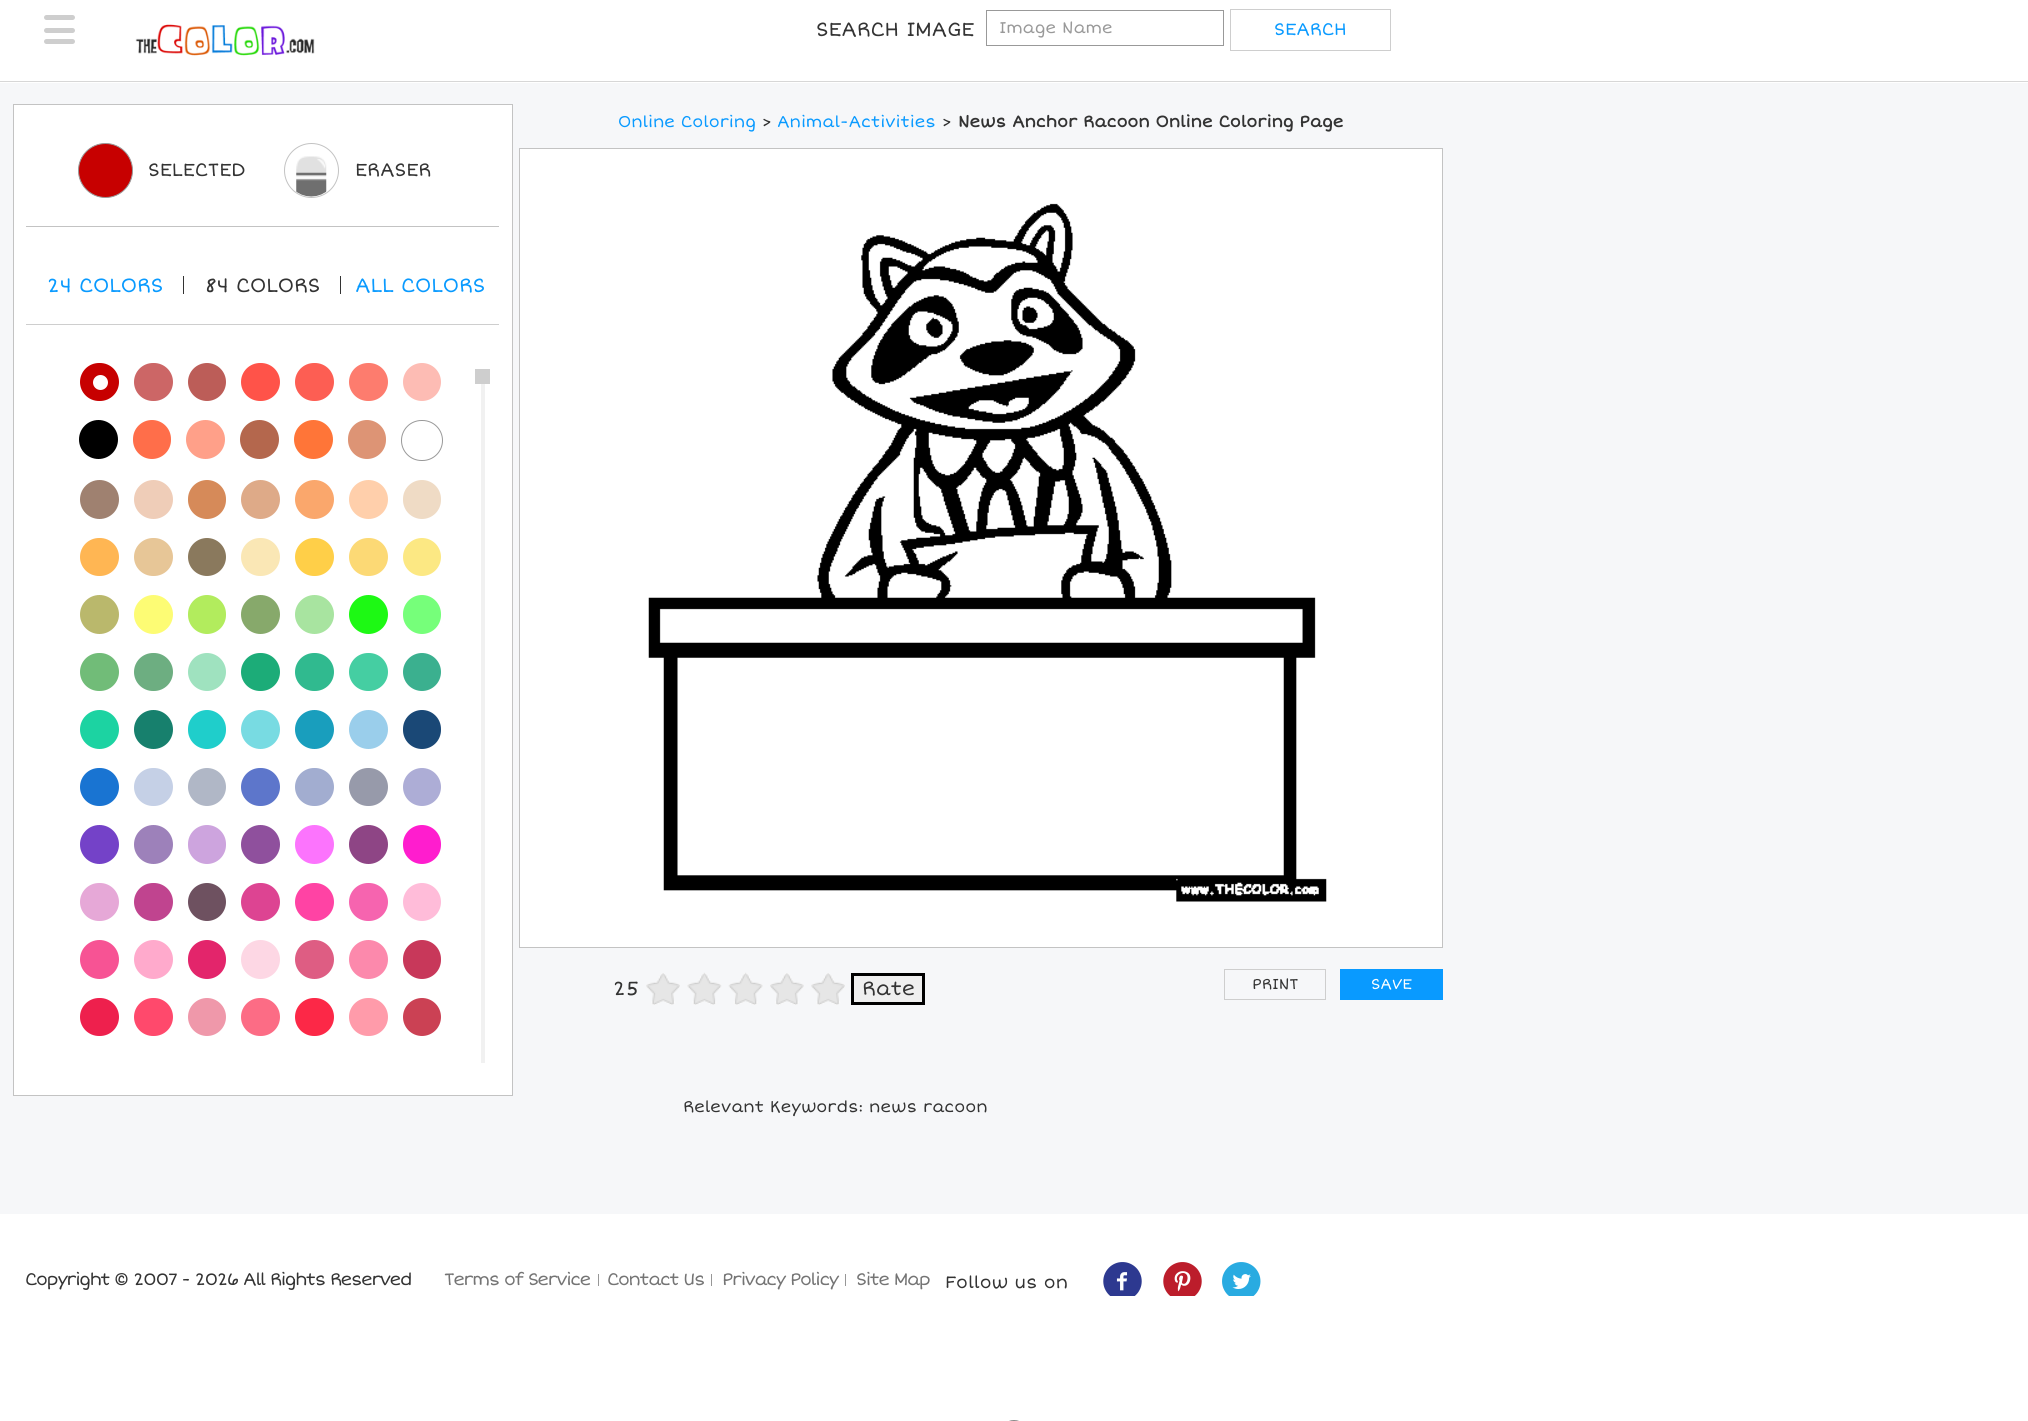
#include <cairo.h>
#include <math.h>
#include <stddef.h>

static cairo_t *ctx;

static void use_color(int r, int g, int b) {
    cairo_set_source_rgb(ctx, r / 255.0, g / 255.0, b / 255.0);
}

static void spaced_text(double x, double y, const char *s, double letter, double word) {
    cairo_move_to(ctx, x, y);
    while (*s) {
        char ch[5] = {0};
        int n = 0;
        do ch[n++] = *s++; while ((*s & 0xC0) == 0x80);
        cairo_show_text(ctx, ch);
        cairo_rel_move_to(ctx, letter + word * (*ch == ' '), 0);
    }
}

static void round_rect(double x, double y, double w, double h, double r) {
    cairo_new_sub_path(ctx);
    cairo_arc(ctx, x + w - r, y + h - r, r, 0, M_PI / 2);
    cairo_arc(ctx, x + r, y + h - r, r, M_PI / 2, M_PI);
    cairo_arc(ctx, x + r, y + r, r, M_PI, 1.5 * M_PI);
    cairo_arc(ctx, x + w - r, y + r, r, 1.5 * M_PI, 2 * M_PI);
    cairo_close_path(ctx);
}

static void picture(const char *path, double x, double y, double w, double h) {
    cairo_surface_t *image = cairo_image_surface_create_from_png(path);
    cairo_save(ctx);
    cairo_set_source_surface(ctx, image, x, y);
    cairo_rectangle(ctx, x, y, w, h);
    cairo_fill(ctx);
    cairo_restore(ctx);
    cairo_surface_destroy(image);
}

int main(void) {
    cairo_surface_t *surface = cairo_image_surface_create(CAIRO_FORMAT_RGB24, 2028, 1421);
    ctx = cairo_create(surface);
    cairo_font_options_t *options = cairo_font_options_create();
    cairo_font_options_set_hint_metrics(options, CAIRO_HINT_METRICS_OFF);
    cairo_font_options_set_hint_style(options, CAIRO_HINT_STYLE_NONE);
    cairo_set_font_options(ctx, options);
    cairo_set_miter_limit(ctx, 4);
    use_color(246, 247, 249);
    cairo_paint(ctx);
    use_color(255, 255, 255);
    cairo_rectangle(ctx, 0, 0, 2028, 83);
    cairo_fill(ctx);
    use_color(215, 215, 215);
    cairo_rectangle(ctx, 0, 81, 2028, 1);
    cairo_fill(ctx);
    use_color(206, 206, 206);
    round_rect(44, 15, 31, 5, 2.5);
    cairo_fill(ctx);
    round_rect(44, 28, 31, 5, 2.5);
    cairo_fill(ctx);
    round_rect(44, 39, 31, 5, 2.5);
    cairo_fill(ctx);
    picture("img1.png", 135, 24, 180, 32);
    cairo_select_font_face(ctx, "Short Stack", CAIRO_FONT_SLANT_NORMAL, CAIRO_FONT_WEIGHT_NORMAL);
    cairo_set_font_size(ctx, 20);
    use_color(51, 51, 51);
    cairo_move_to(ctx, 816, 36);
    cairo_show_text(ctx, "SEARCH IMAGE");
    cairo_rectangle(ctx, 986.5, 10.5, 237, 35);
    use_color(153, 153, 153);
    cairo_set_line_width(ctx, 1);
    cairo_stroke(ctx);
    cairo_set_font_size(ctx, 16.25);
    cairo_move_to(ctx, 999, 33);
    cairo_show_text(ctx, "Image Name");
    cairo_rectangle(ctx, 1230.5, 9.5, 160, 41);
    use_color(206, 206, 206);
    cairo_stroke(ctx);
    cairo_set_font_size(ctx, 17.5);
    use_color(9, 154, 255);
    cairo_move_to(ctx, 1274, 35);
    cairo_show_text(ctx, "SEARCH");
    use_color(255, 255, 255);
    cairo_rectangle(ctx, 13.5, 104.5, 499, 991);
    cairo_fill_preserve(ctx);
    use_color(195, 195, 195);
    cairo_stroke(ctx);
    cairo_rectangle(ctx, 26, 226, 473, 1);
    cairo_fill(ctx);
    use_color(199, 0, 0);
    cairo_arc(ctx, 105.5, 170.5, 27, 0, 2 * M_PI);
    cairo_fill_preserve(ctx);
    use_color(153, 153, 153);
    cairo_stroke(ctx);
    cairo_set_font_size(ctx, 18.75);
    use_color(51, 51, 51);
    cairo_move_to(ctx, 148, 176);
    cairo_show_text(ctx, "SELECTED");
    cairo_new_path(ctx);
    cairo_arc(ctx, 311.5, 170.5, 27, 0, 2 * M_PI);
    use_color(195, 195, 195);
    cairo_stroke(ctx);
    picture("img2.png", 296, 156, 31, 41);
    use_color(51, 51, 51);
    cairo_move_to(ctx, 355, 176);
    cairo_show_text(ctx, "ERASER");
    use_color(206, 206, 206);
    cairo_rectangle(ctx, 26, 324, 473, 1);
    cairo_fill(ctx);
    cairo_set_font_size(ctx, 20);
    use_color(9, 154, 255);
    cairo_move_to(ctx, 47, 292);
    cairo_show_text(ctx, "24 COLORS");
    use_color(51, 51, 51);
    cairo_rectangle(ctx, 183, 276, 1, 18);
    cairo_fill(ctx);
    cairo_move_to(ctx, 205, 292);
    cairo_show_text(ctx, "84 COLORS");
    cairo_rectangle(ctx, 340, 276, 1, 18);
    cairo_fill(ctx);
    use_color(9, 154, 255);
    cairo_move_to(ctx, 355, 292);
    cairo_show_text(ctx, "ALL COLORS");
    use_color(199, 0, 0);
    round_rect(80, 363, 39, 38, 19);
    cairo_fill(ctx);
    use_color(255, 255, 255);
    cairo_arc(ctx, 100.5, 382.5, 7.5, 0, 2 * M_PI);
    cairo_fill(ctx);
    use_color(204, 102, 102);
    round_rect(134, 363, 39, 38, 19);
    cairo_fill(ctx);
    use_color(188, 93, 88);
    cairo_arc(ctx, 207, 382, 19, 0, 2 * M_PI);
    cairo_fill(ctx);
    use_color(255, 83, 73);
    round_rect(241, 363, 39, 38, 19);
    cairo_fill(ctx);
    use_color(253, 94, 83);
    round_rect(295, 363, 39, 38, 19);
    cairo_fill(ctx);
    use_color(253, 124, 110);
    round_rect(349, 363, 39, 38, 19);
    cairo_fill(ctx);
    use_color(253, 188, 180);
    cairo_arc(ctx, 422, 382, 19, 0, 2 * M_PI);
    cairo_fill(ctx);
    use_color(0, 0, 0);
    cairo_arc(ctx, 98.5, 439.5, 19.5, 0, 2 * M_PI);
    cairo_fill(ctx);
    use_color(255, 110, 74);
    round_rect(133, 420, 38, 39, 19);
    cairo_fill(ctx);
    use_color(255, 160, 137);
    cairo_arc(ctx, 205.5, 439.5, 19.5, 0, 2 * M_PI);
    cairo_fill(ctx);
    use_color(180, 103, 77);
    cairo_arc(ctx, 259.5, 439.5, 19.5, 0, 2 * M_PI);
    cairo_fill(ctx);
    use_color(255, 117, 56);
    cairo_arc(ctx, 313.5, 439.5, 19.5, 0, 2 * M_PI);
    cairo_fill(ctx);
    use_color(221, 148, 117);
    round_rect(348, 420, 38, 39, 19);
    cairo_fill(ctx);
    round_rect(401.5, 420.5, 41, 40, 20);
    use_color(153, 153, 153);
    cairo_stroke(ctx);
    use_color(159, 129, 112);
    cairo_arc(ctx, 99.5, 499.5, 19.5, 0, 2 * M_PI);
    cairo_fill(ctx);
    use_color(239, 205, 184);
    cairo_arc(ctx, 153.5, 499.5, 19.5, 0, 2 * M_PI);
    cairo_fill(ctx);
    use_color(214, 138, 89);
    round_rect(188, 480, 38, 39, 19);
    cairo_fill(ctx);
    use_color(222, 170, 136);
    cairo_arc(ctx, 260.5, 499.5, 19.5, 0, 2 * M_PI);
    cairo_fill(ctx);
    use_color(250, 167, 108);
    cairo_arc(ctx, 314.5, 499.5, 19.5, 0, 2 * M_PI);
    cairo_fill(ctx);
    use_color(255, 207, 171);
    cairo_arc(ctx, 368.5, 499.5, 19.5, 0, 2 * M_PI);
    cairo_fill(ctx);
    use_color(239, 219, 197);
    round_rect(403, 480, 38, 39, 19);
    cairo_fill(ctx);
    use_color(255, 182, 83);
    round_rect(80, 538, 39, 38, 19);
    cairo_fill(ctx);
    use_color(231, 198, 151);
    round_rect(134, 538, 39, 38, 19);
    cairo_fill(ctx);
    use_color(138, 121, 93);
    cairo_arc(ctx, 207, 557, 19, 0, 2 * M_PI);
    cairo_fill(ctx);
    use_color(250, 231, 181);
    round_rect(241, 538, 39, 38, 19);
    cairo_fill(ctx);
    use_color(255, 207, 72);
    round_rect(295, 538, 39, 38, 19);
    cairo_fill(ctx);
    use_color(252, 217, 117);
    round_rect(349, 538, 39, 38, 19);
    cairo_fill(ctx);
    use_color(252, 232, 131);
    cairo_arc(ctx, 422, 557, 19, 0, 2 * M_PI);
    cairo_fill(ctx);
    use_color(186, 184, 108);
    cairo_arc(ctx, 99.5, 614.5, 19.5, 0, 2 * M_PI);
    cairo_fill(ctx);
    use_color(253, 252, 116);
    cairo_arc(ctx, 153.5, 614.5, 19.5, 0, 2 * M_PI);
    cairo_fill(ctx);
    use_color(178, 236, 93);
    round_rect(188, 595, 38, 39, 19);
    cairo_fill(ctx);
    use_color(135, 169, 107);
    cairo_arc(ctx, 260.5, 614.5, 19.5, 0, 2 * M_PI);
    cairo_fill(ctx);
    use_color(168, 228, 160);
    cairo_arc(ctx, 314.5, 614.5, 19.5, 0, 2 * M_PI);
    cairo_fill(ctx);
    use_color(29, 249, 20);
    cairo_arc(ctx, 368.5, 614.5, 19.5, 0, 2 * M_PI);
    cairo_fill(ctx);
    use_color(118, 255, 122);
    round_rect(403, 595, 38, 39, 19);
    cairo_fill(ctx);
    use_color(113, 188, 120);
    round_rect(80, 653, 39, 38, 19);
    cairo_fill(ctx);
    use_color(109, 174, 129);
    round_rect(134, 653, 39, 38, 19);
    cairo_fill(ctx);
    use_color(159, 226, 191);
    cairo_arc(ctx, 207, 672, 19, 0, 2 * M_PI);
    cairo_fill(ctx);
    use_color(28, 172, 120);
    round_rect(241, 653, 39, 38, 19);
    cairo_fill(ctx);
    use_color(48, 186, 143);
    round_rect(295, 653, 39, 38, 19);
    cairo_fill(ctx);
    use_color(69, 206, 162);
    round_rect(349, 653, 39, 38, 19);
    cairo_fill(ctx);
    use_color(59, 176, 143);
    cairo_arc(ctx, 422, 672, 19, 0, 2 * M_PI);
    cairo_fill(ctx);
    use_color(28, 211, 162);
    cairo_arc(ctx, 99.5, 729.5, 19.5, 0, 2 * M_PI);
    cairo_fill(ctx);
    use_color(23, 128, 109);
    cairo_arc(ctx, 153.5, 729.5, 19.5, 0, 2 * M_PI);
    cairo_fill(ctx);
    use_color(31, 206, 203);
    round_rect(188, 710, 38, 39, 19);
    cairo_fill(ctx);
    use_color(120, 219, 226);
    cairo_arc(ctx, 260.5, 729.5, 19.5, 0, 2 * M_PI);
    cairo_fill(ctx);
    use_color(25, 158, 189);
    cairo_arc(ctx, 314.5, 729.5, 19.5, 0, 2 * M_PI);
    cairo_fill(ctx);
    use_color(154, 206, 235);
    cairo_arc(ctx, 368.5, 729.5, 19.5, 0, 2 * M_PI);
    cairo_fill(ctx);
    use_color(26, 72, 118);
    round_rect(403, 710, 38, 39, 19);
    cairo_fill(ctx);
    use_color(25, 116, 210);
    round_rect(80, 768, 39, 38, 19);
    cairo_fill(ctx);
    use_color(197, 208, 230);
    round_rect(134, 768, 39, 38, 19);
    cairo_fill(ctx);
    use_color(176, 183, 198);
    cairo_arc(ctx, 207, 787, 19, 0, 2 * M_PI);
    cairo_fill(ctx);
    use_color(93, 118, 203);
    round_rect(241, 768, 39, 38, 19);
    cairo_fill(ctx);
    use_color(162, 173, 208);
    round_rect(295, 768, 39, 38, 19);
    cairo_fill(ctx);
    use_color(151, 154, 170);
    round_rect(349, 768, 39, 38, 19);
    cairo_fill(ctx);
    use_color(173, 173, 214);
    cairo_arc(ctx, 422, 787, 19, 0, 2 * M_PI);
    cairo_fill(ctx);
    use_color(116, 66, 200);
    cairo_arc(ctx, 99.5, 844.5, 19.5, 0, 2 * M_PI);
    cairo_fill(ctx);
    use_color(157, 129, 186);
    cairo_arc(ctx, 153.5, 844.5, 19.5, 0, 2 * M_PI);
    cairo_fill(ctx);
    use_color(205, 164, 222);
    round_rect(188, 825, 38, 39, 19);
    cairo_fill(ctx);
    use_color(143, 80, 157);
    cairo_arc(ctx, 260.5, 844.5, 19.5, 0, 2 * M_PI);
    cairo_fill(ctx);
    use_color(252, 116, 253);
    cairo_arc(ctx, 314.5, 844.5, 19.5, 0, 2 * M_PI);
    cairo_fill(ctx);
    use_color(142, 69, 133);
    cairo_arc(ctx, 368.5, 844.5, 19.5, 0, 2 * M_PI);
    cairo_fill(ctx);
    use_color(255, 29, 206);
    round_rect(403, 825, 38, 39, 19);
    cairo_fill(ctx);
    use_color(230, 168, 215);
    round_rect(80, 883, 39, 38, 19);
    cairo_fill(ctx);
    use_color(192, 68, 143);
    round_rect(134, 883, 39, 38, 19);
    cairo_fill(ctx);
    use_color(110, 81, 96);
    cairo_arc(ctx, 207, 902, 19, 0, 2 * M_PI);
    cairo_fill(ctx);
    use_color(221, 68, 146);
    round_rect(241, 883, 39, 38, 19);
    cairo_fill(ctx);
    use_color(255, 67, 164);
    round_rect(295, 883, 39, 38, 19);
    cairo_fill(ctx);
    use_color(246, 100, 175);
    round_rect(349, 883, 39, 38, 19);
    cairo_fill(ctx);
    use_color(255, 188, 217);
    cairo_arc(ctx, 422, 902, 19, 0, 2 * M_PI);
    cairo_fill(ctx);
    use_color(247, 83, 148);
    cairo_arc(ctx, 99.5, 959.5, 19.5, 0, 2 * M_PI);
    cairo_fill(ctx);
    use_color(255, 170, 204);
    cairo_arc(ctx, 153.5, 959.5, 19.5, 0, 2 * M_PI);
    cairo_fill(ctx);
    use_color(227, 37, 107);
    round_rect(188, 940, 38, 39, 19);
    cairo_fill(ctx);
    use_color(253, 215, 228);
    cairo_arc(ctx, 260.5, 959.5, 19.5, 0, 2 * M_PI);
    cairo_fill(ctx);
    use_color(222, 93, 131);
    cairo_arc(ctx, 314.5, 959.5, 19.5, 0, 2 * M_PI);
    cairo_fill(ctx);
    use_color(252, 137, 172);
    cairo_arc(ctx, 368.5, 959.5, 19.5, 0, 2 * M_PI);
    cairo_fill(ctx);
    use_color(200, 56, 90);
    round_rect(403, 940, 38, 39, 19);
    cairo_fill(ctx);
    use_color(238, 32, 77);
    round_rect(80, 998, 39, 38, 19);
    cairo_fill(ctx);
    use_color(255, 73, 108);
    round_rect(134, 998, 39, 38, 19);
    cairo_fill(ctx);
    use_color(239, 152, 170);
    cairo_arc(ctx, 207, 1017, 19, 0, 2 * M_PI);
    cairo_fill(ctx);
    use_color(252, 108, 133);
    round_rect(241, 998, 39, 38, 19);
    cairo_fill(ctx);
    use_color(252, 40, 71);
    round_rect(295, 998, 39, 38, 19);
    cairo_fill(ctx);
    use_color(255, 155, 170);
    round_rect(349, 998, 39, 38, 19);
    cairo_fill(ctx);
    use_color(203, 65, 84);
    cairo_arc(ctx, 422, 1017, 19, 0, 2 * M_PI);
    cairo_fill(ctx);
    use_color(241, 241, 241);
    cairo_rectangle(ctx, 481, 384, 4, 679);
    cairo_fill(ctx);
    use_color(206, 206, 206);
    cairo_rectangle(ctx, 475, 369, 15, 15);
    cairo_fill(ctx);
    cairo_set_font_size(ctx, 16.25);
    use_color(9, 154, 255);
    cairo_move_to(ctx, 618, 127);
    cairo_show_text(ctx, "Online Coloring");
    use_color(51, 51, 51);
    cairo_move_to(ctx, 762, 127);
    cairo_show_text(ctx, ">");
    use_color(9, 154, 255);
    cairo_move_to(ctx, 777, 127);
    cairo_show_text(ctx, "Animal-Activities");
    use_color(51, 51, 51);
    cairo_move_to(ctx, 942, 127);
    cairo_show_text(ctx, ">");
    cairo_select_font_face(ctx, "Short Stack", CAIRO_FONT_SLANT_NORMAL, CAIRO_FONT_WEIGHT_BOLD);
    cairo_move_to(ctx, 958, 127);
    cairo_show_text(ctx, "News Anchor Racoon Online Coloring Page");
    use_color(255, 255, 255);
    cairo_rectangle(ctx, 519.5, 148.5, 923, 799);
    cairo_fill_preserve(ctx);
    use_color(195, 195, 195);
    cairo_stroke(ctx);
    picture("img3.png", 648, 203, 679, 699);
    cairo_select_font_face(ctx, "Short Stack", CAIRO_FONT_SLANT_NORMAL, CAIRO_FONT_WEIGHT_NORMAL);
    cairo_set_font_size(ctx, 20);
    use_color(51, 51, 51);
    cairo_move_to(ctx, 613, 995);
    cairo_show_text(ctx, "25");
    picture("img4.png", 646, 973, 34, 32);
    picture("img5.png", 687, 972, 35, 33);
    picture("img6.png", 728, 972, 35, 33);
    picture("img7.png", 770, 973, 34, 32);
    picture("img4.png", 811, 973, 34, 32);
    use_color(239, 239, 239);
    cairo_rectangle(ctx, 852.5, 974.5, 71, 29);
    cairo_fill_preserve(ctx);
    use_color(0, 0, 0);
    cairo_set_line_width(ctx, 3);
    cairo_stroke(ctx);
    use_color(51, 51, 51);
    cairo_move_to(ctx, 862, 995);
    cairo_show_text(ctx, "Rate");
    cairo_rectangle(ctx, 1224.5, 969.5, 101, 30);
    use_color(206, 206, 206);
    cairo_set_line_width(ctx, 1);
    cairo_stroke(ctx);
    cairo_set_font_size(ctx, 15);
    use_color(51, 51, 51);
    cairo_move_to(ctx, 1252, 989);
    cairo_show_text(ctx, "PRINT");
    use_color(9, 154, 255);
    cairo_rectangle(ctx, 1340, 969, 103, 31);
    cairo_fill(ctx);
    use_color(255, 255, 255);
    cairo_move_to(ctx, 1371, 989);
    cairo_show_text(ctx, "SAVE");
    cairo_set_font_size(ctx, 16.25);
    use_color(51, 51, 51);
    cairo_move_to(ctx, 683, 1112);
    cairo_show_text(ctx, "Relevant Keywords: news racoon");
    use_color(255, 255, 255);
    cairo_rectangle(ctx, 0, 1214, 2028, 207);
    cairo_fill(ctx);
    cairo_set_font_size(ctx, 17.5);
    use_color(51, 51, 51);
    spaced_text(25, 1285, "Copyright © 2007 - 2026 All Rights Reserved", -1.25, 0);
    use_color(116, 116, 116);
    spaced_text(444, 1285, "Terms of Service", -1.25, 0);
    use_color(151, 151, 151);
    cairo_rectangle(ctx, 598, 1274, 1, 12);
    cairo_fill(ctx);
    use_color(116, 116, 116);
    spaced_text(607, 1285, "Contact Us", -1.25, 0);
    use_color(151, 151, 151);
    cairo_rectangle(ctx, 711, 1274, 1, 12);
    cairo_fill(ctx);
    use_color(116, 116, 116);
    spaced_text(722, 1285, "Privacy Policy", -1.25, 0);
    use_color(151, 151, 151);
    cairo_rectangle(ctx, 845, 1274, 1, 12);
    cairo_fill(ctx);
    use_color(116, 116, 116);
    spaced_text(856, 1285, "Site Map", -1.25, 0);
    use_color(51, 51, 51);
    cairo_move_to(ctx, 945, 1288);
    cairo_show_text(ctx, "Follow us on");
    picture("img8.png", 1103, 1262, 39, 34);
    picture("img9.png", 1163, 1262, 39, 34);
    picture("img10.png", 1222, 1262, 39, 34);
    round_rect(1000.5, 1420.5, 27, 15, 13.5);
    use_color(249, 249, 249);
    cairo_stroke(ctx);
    round_rect(1000.5, 1420.5, 27, 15, 13.5);
    use_color(136, 136, 136);
    cairo_stroke(ctx);
    cairo_surface_write_to_png(surface, "result.png");
    cairo_font_options_destroy(options);
    cairo_destroy(ctx);
    cairo_surface_destroy(surface);
    return 0;
}
